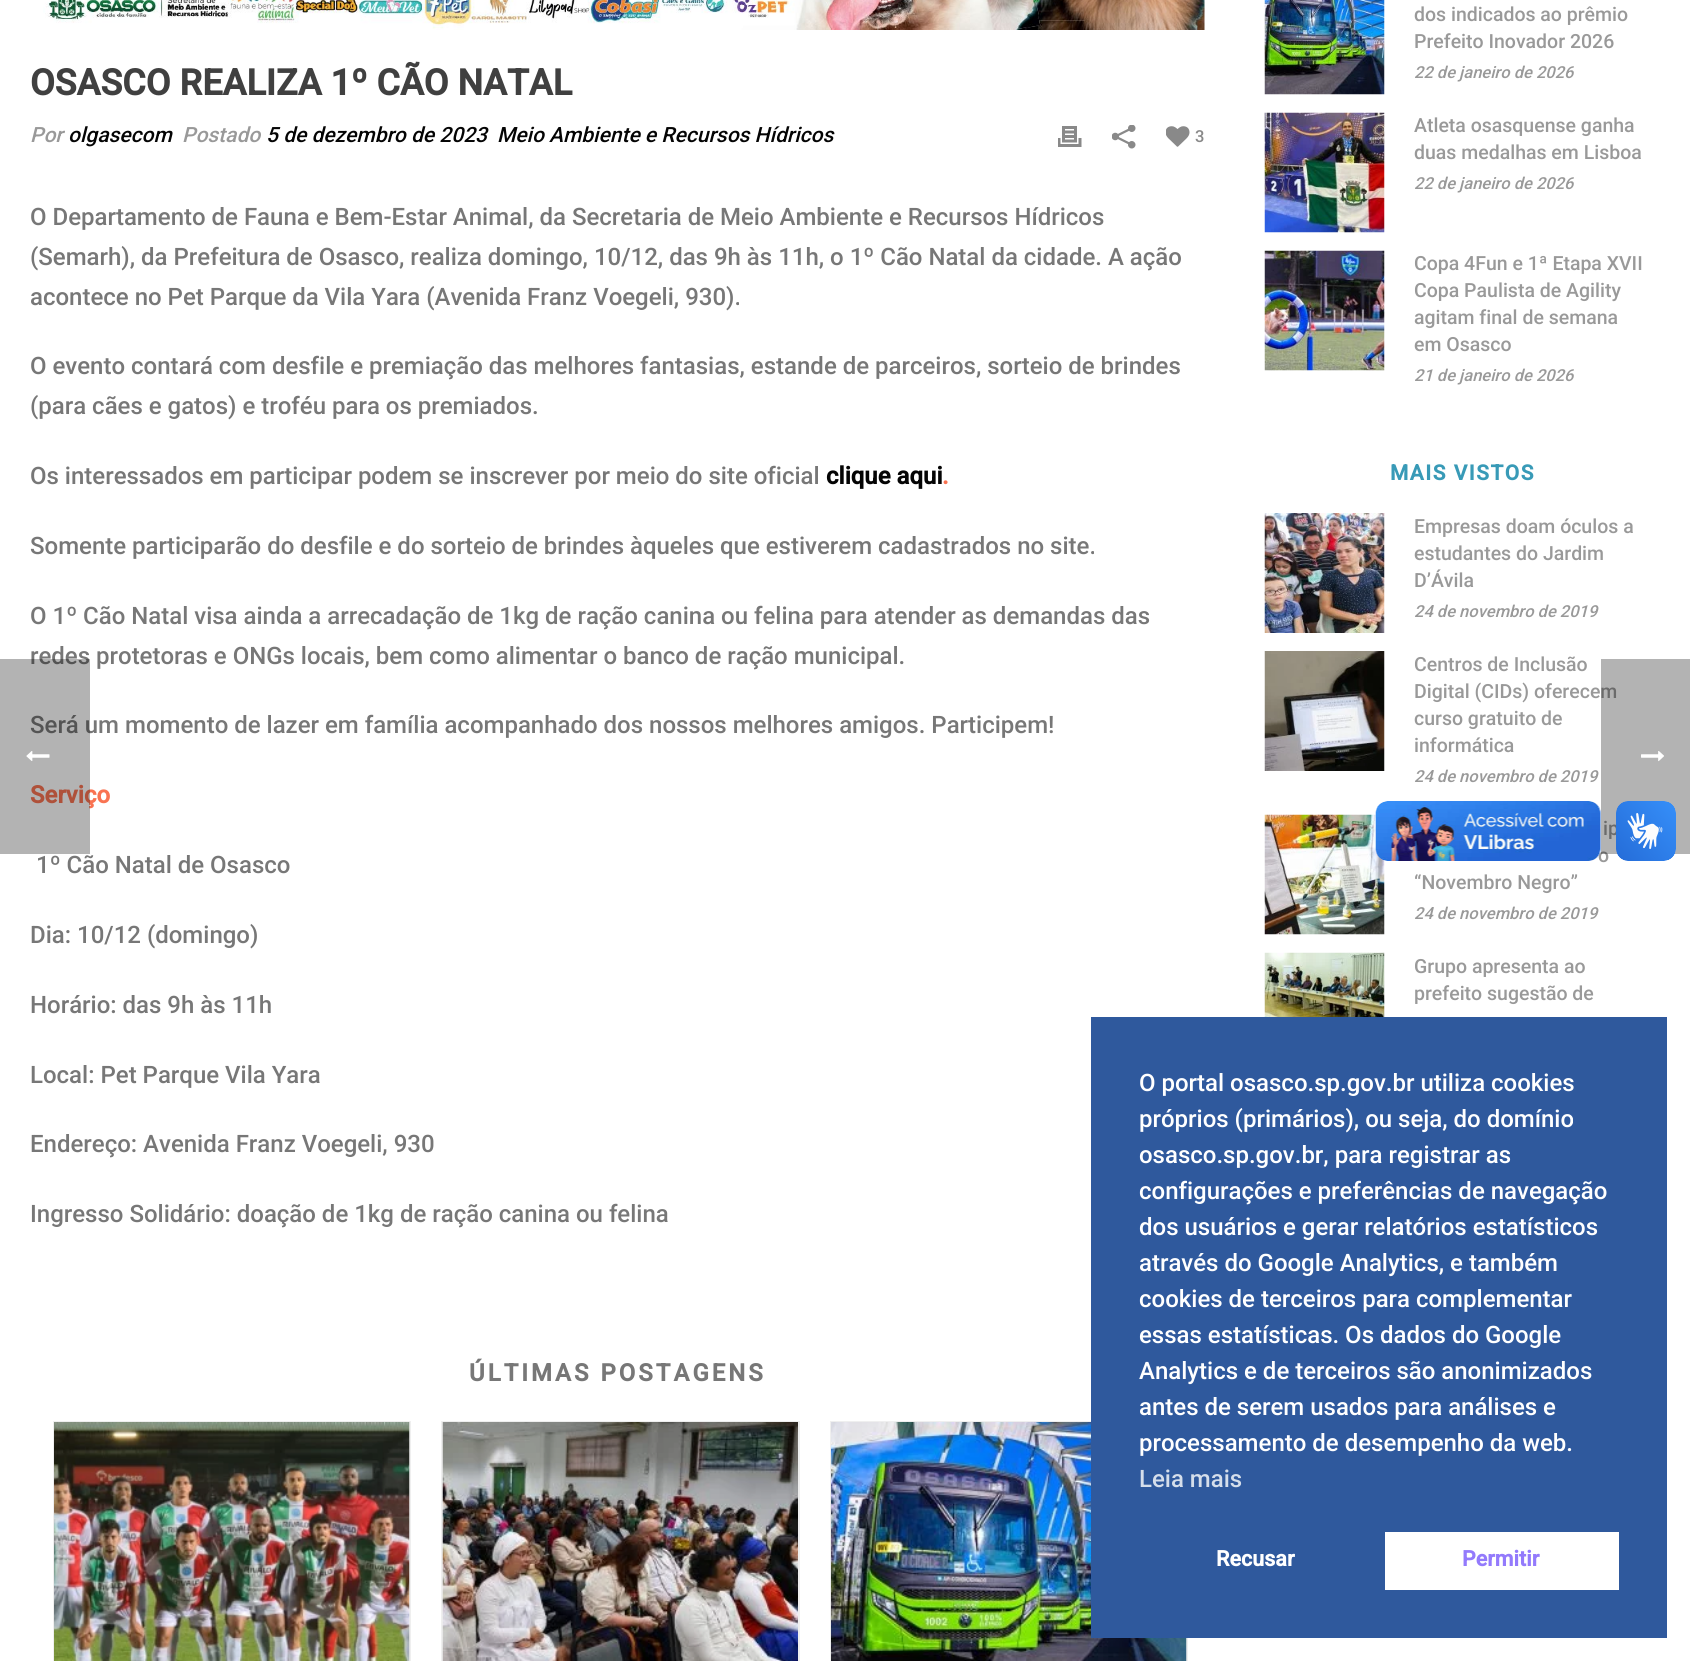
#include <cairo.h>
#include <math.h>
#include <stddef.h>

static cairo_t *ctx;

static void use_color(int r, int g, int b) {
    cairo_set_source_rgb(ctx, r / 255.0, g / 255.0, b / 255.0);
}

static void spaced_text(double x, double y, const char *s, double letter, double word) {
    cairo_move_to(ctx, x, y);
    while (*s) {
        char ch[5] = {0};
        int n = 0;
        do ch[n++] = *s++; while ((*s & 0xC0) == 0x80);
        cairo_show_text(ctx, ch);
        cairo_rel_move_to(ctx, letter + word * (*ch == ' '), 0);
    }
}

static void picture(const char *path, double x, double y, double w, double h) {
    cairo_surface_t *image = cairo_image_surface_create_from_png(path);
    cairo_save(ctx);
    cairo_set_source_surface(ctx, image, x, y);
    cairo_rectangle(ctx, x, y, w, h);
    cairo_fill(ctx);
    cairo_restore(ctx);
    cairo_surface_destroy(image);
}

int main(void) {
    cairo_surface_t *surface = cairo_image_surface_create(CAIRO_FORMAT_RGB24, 1690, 1661);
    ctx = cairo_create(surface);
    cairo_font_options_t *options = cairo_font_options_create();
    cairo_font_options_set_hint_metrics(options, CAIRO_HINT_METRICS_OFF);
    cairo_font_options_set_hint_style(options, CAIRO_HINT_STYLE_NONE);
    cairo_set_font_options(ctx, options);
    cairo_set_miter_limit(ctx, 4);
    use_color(255, 255, 255);
    cairo_paint(ctx);
    picture("img1.png", 43, 0, 1162, 30);
    cairo_select_font_face(ctx, "Roboto", CAIRO_FONT_SLANT_NORMAL, CAIRO_FONT_WEIGHT_BOLD);
    cairo_set_font_size(ctx, 36);
    use_color(64, 64, 64);
    cairo_move_to(ctx, 30, 95);
    cairo_show_text(ctx, "OSASCO REALIZA 1º CÃO NATAL");
    cairo_select_font_face(ctx, "Roboto Medium", CAIRO_FONT_SLANT_ITALIC, CAIRO_FONT_WEIGHT_NORMAL);
    cairo_set_font_size(ctx, 21);
    use_color(153, 153, 153);
    cairo_move_to(ctx, 30, 142);
    cairo_show_text(ctx, "Por");
    use_color(4, 4, 4);
    cairo_move_to(ctx, 68, 142);
    cairo_show_text(ctx, "olgasecom");
    use_color(153, 153, 153);
    cairo_move_to(ctx, 182, 142);
    cairo_show_text(ctx, "Postado");
    use_color(4, 4, 4);
    cairo_move_to(ctx, 266, 142);
    cairo_show_text(ctx, "5 de dezembro de 2023");
    cairo_move_to(ctx, 497, 142);
    cairo_show_text(ctx, "Meio Ambiente e Recursos Hídricos");
    picture("img2.png", 1058, 126, 24, 21);
    picture("img3.png", 1112, 125, 24, 24);
    picture("img4.png", 1166, 126, 24, 21);
    cairo_select_font_face(ctx, "Roboto Medium", CAIRO_FONT_SLANT_NORMAL, CAIRO_FONT_WEIGHT_NORMAL);
    cairo_set_font_size(ctx, 16.5);
    use_color(137, 137, 137);
    cairo_move_to(ctx, 1195, 142);
    cairo_show_text(ctx, "3");
    cairo_set_font_size(ctx, 24);
    use_color(119, 119, 119);
    cairo_move_to(ctx, 30, 225);
    cairo_show_text(ctx, "O Departamento de Fauna e Bem-Estar Animal, da Secretaria de Meio Ambiente e Recursos Hídricos");
    cairo_move_to(ctx, 30, 265);
    cairo_show_text(ctx, "(Semarh), da Prefeitura de Osasco, realiza domingo, 10/12, das 9h às 11h, o 1º Cão Natal da cidade. A ação");
    cairo_move_to(ctx, 30, 305);
    cairo_show_text(ctx, "acontece no Pet Parque da Vila Yara (Avenida Franz Voegeli, 930).");
    cairo_move_to(ctx, 30, 374);
    cairo_show_text(ctx, "O evento contará com desfile e premiação das melhores fantasias, estande de parceiros, sorteio de brindes");
    cairo_move_to(ctx, 30, 414);
    cairo_show_text(ctx, "(para cães e gatos) e troféu para os premiados.");
    cairo_move_to(ctx, 30, 484);
    cairo_show_text(ctx, "Os interessados em participar podem se inscrever por meio do site oficial");
    cairo_select_font_face(ctx, "Roboto", CAIRO_FONT_SLANT_NORMAL, CAIRO_FONT_WEIGHT_BOLD);
    use_color(4, 4, 4);
    cairo_move_to(ctx, 826, 484);
    cairo_show_text(ctx, "clique aqui");
    use_color(249, 115, 82);
    cairo_move_to(ctx, 942, 484);
    cairo_show_text(ctx, ".");
    cairo_select_font_face(ctx, "Roboto Medium", CAIRO_FONT_SLANT_NORMAL, CAIRO_FONT_WEIGHT_NORMAL);
    use_color(119, 119, 119);
    cairo_move_to(ctx, 30, 554);
    cairo_show_text(ctx, "Somente participarão do desfile e do sorteio de brindes àqueles que estiverem cadastrados no site.");
    cairo_move_to(ctx, 30, 624);
    cairo_show_text(ctx, "O 1º Cão Natal visa ainda a arrecadação de 1kg de ração canina ou felina para atender as demandas das");
    cairo_move_to(ctx, 30, 664);
    cairo_show_text(ctx, "redes protetoras e ONGs locais, bem como alimentar o banco de ração municipal.");
    cairo_move_to(ctx, 30, 733);
    cairo_show_text(ctx, "Será um momento de lazer em família acompanhado dos nossos melhores amigos. Participem!");
    cairo_select_font_face(ctx, "Roboto", CAIRO_FONT_SLANT_NORMAL, CAIRO_FONT_WEIGHT_BOLD);
    use_color(249, 115, 82);
    cairo_move_to(ctx, 30, 803);
    cairo_show_text(ctx, "Serviço");
    cairo_select_font_face(ctx, "Roboto Medium", CAIRO_FONT_SLANT_NORMAL, CAIRO_FONT_WEIGHT_NORMAL);
    use_color(119, 119, 119);
    cairo_move_to(ctx, 36, 873);
    cairo_show_text(ctx, "1º Cão Natal de Osasco");
    cairo_move_to(ctx, 30, 943);
    cairo_show_text(ctx, "Dia: 10/12 (domingo)");
    cairo_move_to(ctx, 30, 1013);
    cairo_show_text(ctx, "Horário: das 9h às 11h");
    cairo_move_to(ctx, 30, 1083);
    cairo_show_text(ctx, "Local: Pet Parque Vila Yara");
    cairo_move_to(ctx, 30, 1152);
    cairo_show_text(ctx, "Endereço: Avenida Franz Voegeli, 930");
    cairo_move_to(ctx, 30, 1222);
    cairo_show_text(ctx, "Ingresso Solidário: doação de 1kg de ração canina ou felina");
    cairo_select_font_face(ctx, "Roboto", CAIRO_FONT_SLANT_NORMAL, CAIRO_FONT_WEIGHT_BOLD);
    spaced_text(469, 1381, "ÚLTIMAS POSTAGENS", 3, 0);
    cairo_rectangle(ctx, 54, 1422, 356, 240);
    use_color(239, 239, 239);
    cairo_stroke(ctx);
    picture("img5.png", 54, 1422, 356, 239);
    cairo_rectangle(ctx, 442, 1422, 357, 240);
    cairo_stroke(ctx);
    picture("img6.png", 442, 1422, 356, 239);
    cairo_rectangle(ctx, 831, 1422, 356, 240);
    cairo_stroke(ctx);
    picture("img7.png", 831, 1422, 356, 239);
    picture("img8.png", 1264, 0, 121, 95);
    cairo_select_font_face(ctx, "Roboto Medium", CAIRO_FONT_SLANT_NORMAL, CAIRO_FONT_WEIGHT_NORMAL);
    cairo_set_font_size(ctx, 19.5);
    use_color(153, 153, 153);
    cairo_move_to(ctx, 1414, 21);
    cairo_show_text(ctx, "dos indicados ao prêmio");
    cairo_move_to(ctx, 1414, 48);
    cairo_show_text(ctx, "Prefeito Inovador 2026");
    cairo_select_font_face(ctx, "Roboto Medium", CAIRO_FONT_SLANT_ITALIC, CAIRO_FONT_WEIGHT_NORMAL);
    cairo_set_font_size(ctx, 16.5);
    cairo_move_to(ctx, 1414, 78);
    cairo_show_text(ctx, "22 de janeiro de 2026");
    picture("img9.png", 1264, 112, 121, 121);
    cairo_select_font_face(ctx, "Roboto Medium", CAIRO_FONT_SLANT_NORMAL, CAIRO_FONT_WEIGHT_NORMAL);
    cairo_set_font_size(ctx, 19.5);
    cairo_move_to(ctx, 1414, 132);
    cairo_show_text(ctx, "Atleta osasquense ganha");
    cairo_move_to(ctx, 1414, 159);
    cairo_show_text(ctx, "duas medalhas em Lisboa");
    cairo_select_font_face(ctx, "Roboto Medium", CAIRO_FONT_SLANT_ITALIC, CAIRO_FONT_WEIGHT_NORMAL);
    cairo_set_font_size(ctx, 16.5);
    cairo_move_to(ctx, 1414, 189);
    cairo_show_text(ctx, "22 de janeiro de 2026");
    picture("img10.png", 1264, 250, 121, 121);
    cairo_select_font_face(ctx, "Roboto Medium", CAIRO_FONT_SLANT_NORMAL, CAIRO_FONT_WEIGHT_NORMAL);
    cairo_set_font_size(ctx, 19.5);
    cairo_move_to(ctx, 1414, 270);
    cairo_show_text(ctx, "Copa 4Fun e 1ª Etapa XVII");
    cairo_move_to(ctx, 1414, 297);
    cairo_show_text(ctx, "Copa Paulista de Agility");
    cairo_move_to(ctx, 1414, 324);
    cairo_show_text(ctx, "agitam final de semana");
    cairo_move_to(ctx, 1414, 351);
    cairo_show_text(ctx, "em Osasco");
    cairo_select_font_face(ctx, "Roboto Medium", CAIRO_FONT_SLANT_ITALIC, CAIRO_FONT_WEIGHT_NORMAL);
    cairo_set_font_size(ctx, 16.5);
    cairo_move_to(ctx, 1414, 381);
    cairo_show_text(ctx, "21 de janeiro de 2026");
    cairo_select_font_face(ctx, "Roboto", CAIRO_FONT_SLANT_NORMAL, CAIRO_FONT_WEIGHT_BOLD);
    cairo_set_font_size(ctx, 21);
    use_color(56, 154, 183);
    spaced_text(1390, 480, "MAIS VISTOS", 1.5, 0);
    picture("img11.png", 1264, 513, 121, 120);
    cairo_select_font_face(ctx, "Roboto Medium", CAIRO_FONT_SLANT_NORMAL, CAIRO_FONT_WEIGHT_NORMAL);
    cairo_set_font_size(ctx, 19.5);
    use_color(153, 153, 153);
    cairo_move_to(ctx, 1414, 533);
    cairo_show_text(ctx, "Empresas doam óculos a");
    cairo_move_to(ctx, 1414, 560);
    cairo_show_text(ctx, "estudantes do Jardim");
    cairo_move_to(ctx, 1414, 587);
    cairo_show_text(ctx, "D’Ávila");
    cairo_select_font_face(ctx, "Roboto Medium", CAIRO_FONT_SLANT_ITALIC, CAIRO_FONT_WEIGHT_NORMAL);
    cairo_set_font_size(ctx, 16.5);
    cairo_move_to(ctx, 1414, 617);
    cairo_show_text(ctx, "24 de novembro de 2019");
    picture("img12.png", 1264, 651, 121, 120);
    cairo_select_font_face(ctx, "Roboto Medium", CAIRO_FONT_SLANT_NORMAL, CAIRO_FONT_WEIGHT_NORMAL);
    cairo_set_font_size(ctx, 19.5);
    cairo_move_to(ctx, 1414, 671);
    cairo_show_text(ctx, "Centros de Inclusão");
    cairo_move_to(ctx, 1414, 698);
    cairo_show_text(ctx, "Digital (CIDs) oferecem");
    cairo_move_to(ctx, 1414, 725);
    cairo_show_text(ctx, "curso gratuito de");
    cairo_move_to(ctx, 1414, 752);
    cairo_show_text(ctx, "informática");
    cairo_select_font_face(ctx, "Roboto Medium", CAIRO_FONT_SLANT_ITALIC, CAIRO_FONT_WEIGHT_NORMAL);
    cairo_set_font_size(ctx, 16.5);
    cairo_move_to(ctx, 1414, 782);
    cairo_show_text(ctx, "24 de novembro de 2019");
    picture("img13.png", 1264, 814, 121, 121);
    cairo_select_font_face(ctx, "Roboto Medium", CAIRO_FONT_SLANT_NORMAL, CAIRO_FONT_WEIGHT_NORMAL);
    cairo_set_font_size(ctx, 19.5);
    cairo_move_to(ctx, 1603, 835);
    cairo_show_text(ctx, "ip");
    cairo_move_to(ctx, 1598, 862);
    cairo_show_text(ctx, "o");
    cairo_move_to(ctx, 1414, 889);
    cairo_show_text(ctx, "“Novembro Negro”");
    cairo_select_font_face(ctx, "Roboto Medium", CAIRO_FONT_SLANT_ITALIC, CAIRO_FONT_WEIGHT_NORMAL);
    cairo_set_font_size(ctx, 16.5);
    cairo_move_to(ctx, 1414, 919);
    cairo_show_text(ctx, "24 de novembro de 2019");
    picture("img14.png", 1264, 952, 121, 65);
    cairo_select_font_face(ctx, "Roboto Medium", CAIRO_FONT_SLANT_NORMAL, CAIRO_FONT_WEIGHT_NORMAL);
    cairo_set_font_size(ctx, 19.5);
    cairo_move_to(ctx, 1414, 973);
    cairo_show_text(ctx, "Grupo apresenta ao");
    cairo_move_to(ctx, 1414, 1000);
    cairo_show_text(ctx, "prefeito sugestão de");
    cairo_set_source_rgba(ctx, 0, 0, 0, 0.3);
    cairo_rectangle(ctx, 0, 659, 90, 195);
    cairo_fill(ctx);
    picture("img15.png", 26, 751, 24, 10);
    cairo_rectangle(ctx, 1601, 659, 89, 195);
    cairo_fill(ctx);
    picture("img16.png", 1641, 751, 23, 11);
    picture("img17.png", 1375, 801, 226, 60);
    picture("img18.png", 1616, 801, 60, 60);
    use_color(47, 89, 157);
    cairo_rectangle(ctx, 1091, 1017, 576, 621);
    cairo_fill(ctx);
    cairo_set_font_size(ctx, 24);
    use_color(255, 255, 255);
    cairo_move_to(ctx, 1139, 1091);
    cairo_show_text(ctx, "O portal osasco.sp.gov.br utiliza cookies");
    cairo_move_to(ctx, 1139, 1127);
    cairo_show_text(ctx, "próprios (primários), ou seja, do domínio");
    cairo_move_to(ctx, 1139, 1163);
    cairo_show_text(ctx, "osasco.sp.gov.br, para registrar as");
    cairo_move_to(ctx, 1139, 1199);
    cairo_show_text(ctx, "configurações e preferências de navegação");
    cairo_move_to(ctx, 1139, 1235);
    cairo_show_text(ctx, "dos usuários e gerar relatórios estatísticos");
    cairo_move_to(ctx, 1139, 1271);
    cairo_show_text(ctx, "através do Google Analytics, e também");
    cairo_move_to(ctx, 1139, 1307);
    cairo_show_text(ctx, "cookies de terceiros para complementar");
    cairo_move_to(ctx, 1139, 1343);
    cairo_show_text(ctx, "essas estatísticas. Os dados do Google");
    cairo_move_to(ctx, 1139, 1379);
    cairo_show_text(ctx, "Analytics e de terceiros são anonimizados");
    cairo_move_to(ctx, 1139, 1415);
    cairo_show_text(ctx, "antes de serem usados para análises e");
    cairo_move_to(ctx, 1139, 1451);
    cairo_show_text(ctx, "processamento de desempenho da web.");
    use_color(213, 222, 235);
    cairo_move_to(ctx, 1139, 1487);
    cairo_show_text(ctx, "Leia mais");
    cairo_select_font_face(ctx, "Roboto", CAIRO_FONT_SLANT_NORMAL, CAIRO_FONT_WEIGHT_BOLD);
    cairo_set_font_size(ctx, 21.5);
    use_color(255, 255, 255);
    cairo_move_to(ctx, 1216, 1566);
    cairo_show_text(ctx, "Recusar");
    cairo_rectangle(ctx, 1385, 1532, 234, 58);
    cairo_fill(ctx);
    use_color(147, 122, 252);
    cairo_move_to(ctx, 1462, 1566);
    cairo_show_text(ctx, "Permitir");
    cairo_surface_write_to_png(surface, "result.png");
    cairo_font_options_destroy(options);
    cairo_destroy(ctx);
    cairo_surface_destroy(surface);
    return 0;
}
